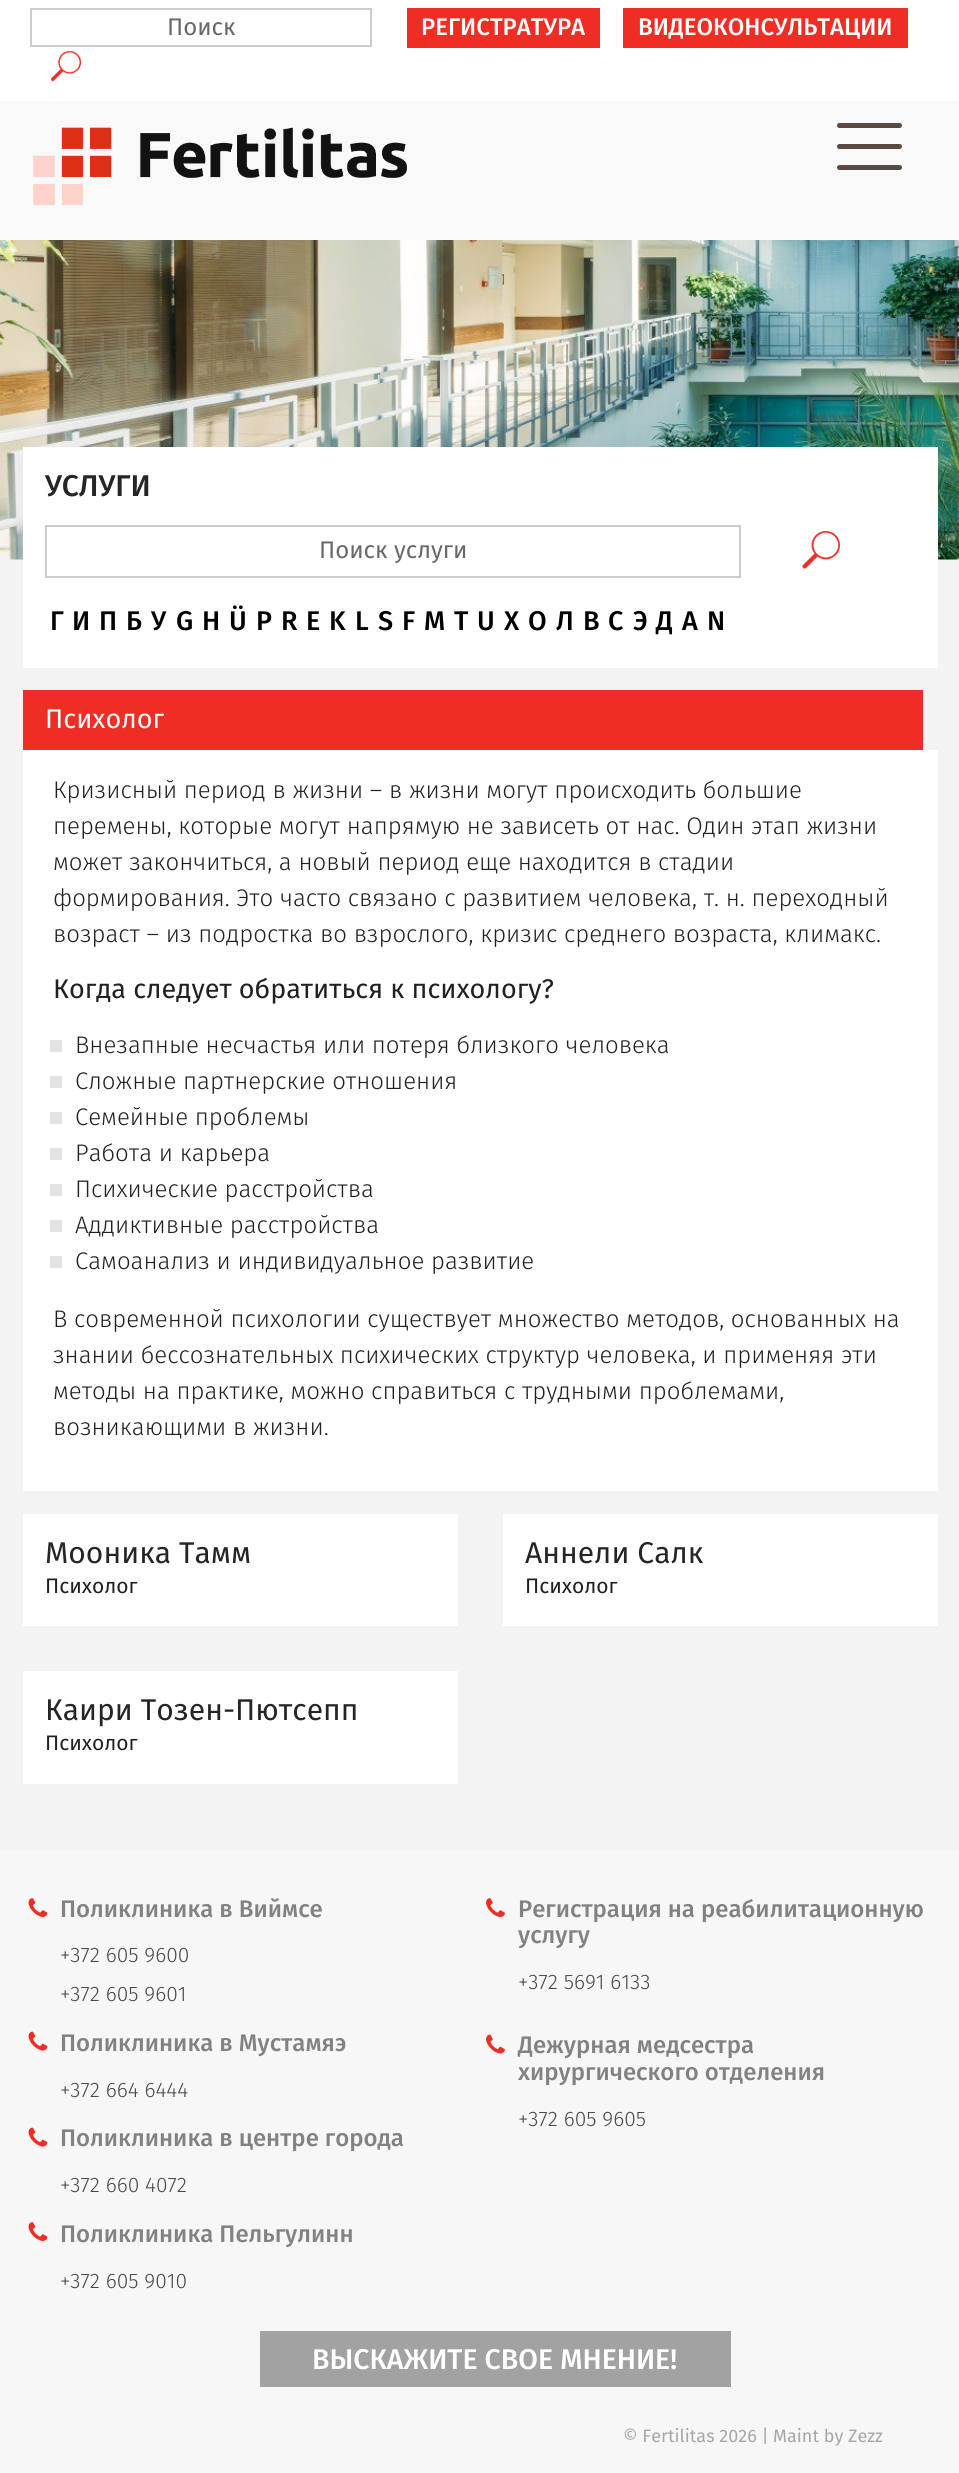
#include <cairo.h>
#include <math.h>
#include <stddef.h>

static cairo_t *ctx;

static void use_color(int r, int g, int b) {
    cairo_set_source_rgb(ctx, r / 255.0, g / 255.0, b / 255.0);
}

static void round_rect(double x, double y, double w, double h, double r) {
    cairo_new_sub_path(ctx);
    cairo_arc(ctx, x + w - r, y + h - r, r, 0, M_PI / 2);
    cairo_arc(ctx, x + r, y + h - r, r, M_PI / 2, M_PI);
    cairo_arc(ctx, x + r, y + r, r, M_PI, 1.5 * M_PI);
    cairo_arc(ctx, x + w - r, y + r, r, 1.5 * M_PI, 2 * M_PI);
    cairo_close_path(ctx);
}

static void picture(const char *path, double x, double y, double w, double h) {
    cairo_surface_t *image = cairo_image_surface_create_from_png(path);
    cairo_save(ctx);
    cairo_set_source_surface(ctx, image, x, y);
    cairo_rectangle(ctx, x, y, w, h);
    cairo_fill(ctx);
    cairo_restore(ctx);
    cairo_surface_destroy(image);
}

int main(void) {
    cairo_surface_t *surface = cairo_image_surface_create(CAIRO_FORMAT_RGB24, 959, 2473);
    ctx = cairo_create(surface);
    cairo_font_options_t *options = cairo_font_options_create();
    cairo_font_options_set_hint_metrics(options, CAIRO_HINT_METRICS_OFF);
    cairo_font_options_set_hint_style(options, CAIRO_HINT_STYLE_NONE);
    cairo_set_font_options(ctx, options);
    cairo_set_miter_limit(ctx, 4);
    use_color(243, 243, 243);
    cairo_paint(ctx);
    use_color(255, 255, 255);
    cairo_rectangle(ctx, 0, 0, 959, 101);
    cairo_fill(ctx);
    cairo_rectangle(ctx, 31, 9, 340, 37);
    use_color(204, 204, 204);
    cairo_stroke(ctx);
    cairo_select_font_face(ctx, "Fira Sans", CAIRO_FONT_SLANT_NORMAL, CAIRO_FONT_WEIGHT_NORMAL);
    cairo_set_font_size(ctx, 24);
    use_color(104, 104, 104);
    cairo_move_to(ctx, 167, 35);
    cairo_show_text(ctx, "Поиск");
    picture("img1.png", 51, 50, 30, 32);
    use_color(238, 46, 36);
    cairo_rectangle(ctx, 407, 8, 193, 40);
    cairo_fill(ctx);
    cairo_select_font_face(ctx, "Fira Sans Medium", CAIRO_FONT_SLANT_NORMAL, CAIRO_FONT_WEIGHT_NORMAL);
    use_color(255, 255, 255);
    cairo_move_to(ctx, 421, 35);
    cairo_show_text(ctx, "РЕГИСТРАТУРА");
    use_color(238, 46, 36);
    cairo_rectangle(ctx, 623, 8, 285, 40);
    cairo_fill(ctx);
    use_color(255, 255, 255);
    cairo_move_to(ctx, 638, 35);
    cairo_show_text(ctx, "ВИДЕОКОНСУЛЬТАЦИИ");
    use_color(249, 249, 249);
    cairo_rectangle(ctx, 0, 101, 959, 139);
    cairo_fill(ctx);
    picture("img2.png", 33, 127, 374, 79);
    use_color(85, 74, 68);
    round_rect(837, 123, 65, 5, 2.5);
    cairo_fill(ctx);
    round_rect(837, 144, 65, 5, 2.5);
    cairo_fill(ctx);
    round_rect(837, 165, 65, 5, 2.5);
    cairo_fill(ctx);
    picture("img3.png", 0, 240, 959, 320);
    use_color(255, 255, 255);
    cairo_rectangle(ctx, 23, 447, 915, 221);
    cairo_fill(ctx);
    cairo_set_font_size(ctx, 30);
    use_color(37, 37, 37);
    cairo_move_to(ctx, 45, 496);
    cairo_show_text(ctx, "УСЛУГИ");
    cairo_rectangle(ctx, 46, 526, 694, 51);
    use_color(204, 204, 204);
    cairo_stroke(ctx);
    cairo_select_font_face(ctx, "Fira Sans", CAIRO_FONT_SLANT_NORMAL, CAIRO_FONT_WEIGHT_NORMAL);
    cairo_set_font_size(ctx, 24);
    use_color(104, 104, 104);
    cairo_move_to(ctx, 319, 558);
    cairo_show_text(ctx, "Поиск услуги");
    picture("img4.png", 802, 531, 38, 38);
    cairo_select_font_face(ctx, "Fira Sans Medium", CAIRO_FONT_SLANT_NORMAL, CAIRO_FONT_WEIGHT_NORMAL);
    cairo_set_font_size(ctx, 27);
    use_color(0, 0, 0);
    cairo_move_to(ctx, 50, 630);
    cairo_show_text(ctx, "Г");
    cairo_move_to(ctx, 72, 630);
    cairo_show_text(ctx, "И");
    cairo_move_to(ctx, 99, 630);
    cairo_show_text(ctx, "П");
    cairo_move_to(ctx, 126, 630);
    cairo_show_text(ctx, "Б");
    cairo_move_to(ctx, 151, 630);
    cairo_show_text(ctx, "У");
    cairo_move_to(ctx, 176, 630);
    cairo_show_text(ctx, "G");
    cairo_move_to(ctx, 202, 630);
    cairo_show_text(ctx, "H");
    cairo_move_to(ctx, 229, 630);
    cairo_show_text(ctx, "Ü");
    cairo_move_to(ctx, 256, 630);
    cairo_show_text(ctx, "P");
    cairo_move_to(ctx, 281, 630);
    cairo_show_text(ctx, "R");
    cairo_move_to(ctx, 306, 630);
    cairo_show_text(ctx, "E");
    cairo_move_to(ctx, 329, 630);
    cairo_show_text(ctx, "K");
    cairo_move_to(ctx, 355, 630);
    cairo_show_text(ctx, "L");
    cairo_move_to(ctx, 378, 630);
    cairo_show_text(ctx, "S");
    cairo_move_to(ctx, 402, 630);
    cairo_show_text(ctx, "F");
    cairo_move_to(ctx, 424, 630);
    cairo_show_text(ctx, "M");
    cairo_move_to(ctx, 454, 630);
    cairo_show_text(ctx, "T");
    cairo_move_to(ctx, 477, 630);
    cairo_show_text(ctx, "U");
    cairo_move_to(ctx, 504, 630);
    cairo_show_text(ctx, "Х");
    cairo_move_to(ctx, 528, 630);
    cairo_show_text(ctx, "O");
    cairo_move_to(ctx, 556, 630);
    cairo_show_text(ctx, "Л");
    cairo_move_to(ctx, 583, 630);
    cairo_show_text(ctx, "В");
    cairo_move_to(ctx, 608, 630);
    cairo_show_text(ctx, "С");
    cairo_move_to(ctx, 633, 630);
    cairo_show_text(ctx, "Э");
    cairo_move_to(ctx, 656, 630);
    cairo_show_text(ctx, "Д");
    cairo_move_to(ctx, 682, 630);
    cairo_show_text(ctx, "A");
    cairo_move_to(ctx, 707, 630);
    cairo_show_text(ctx, "N");
    use_color(238, 46, 36);
    cairo_rectangle(ctx, 23, 690, 900, 60);
    cairo_fill(ctx);
    cairo_select_font_face(ctx, "Fira Sans", CAIRO_FONT_SLANT_NORMAL, CAIRO_FONT_WEIGHT_NORMAL);
    use_color(255, 255, 255);
    cairo_move_to(ctx, 45, 728);
    cairo_show_text(ctx, "Психолог");
    cairo_rectangle(ctx, 23, 750, 915, 741);
    cairo_fill(ctx);
    cairo_select_font_face(ctx, "Fira Sans Light", CAIRO_FONT_SLANT_NORMAL, CAIRO_FONT_WEIGHT_NORMAL);
    cairo_set_font_size(ctx, 24);
    use_color(35, 31, 32);
    cairo_move_to(ctx, 53, 798);
    cairo_show_text(ctx, "Кризисный период в жизни – в жизни могут происходить большие");
    cairo_move_to(ctx, 53, 834);
    cairo_show_text(ctx, "перемены, которые могут напрямую не зависеть от нас. Один этап жизни");
    cairo_move_to(ctx, 53, 870);
    cairo_show_text(ctx, "может закончиться, а новый период еще находится в стадии");
    cairo_move_to(ctx, 53, 906);
    cairo_show_text(ctx, "формирования. Это часто связано с развитием человека, т. н. переходный");
    cairo_move_to(ctx, 53, 942);
    cairo_show_text(ctx, "возраст – из подростка во взрослого, кризис среднего возраста, климакс.");
    cairo_select_font_face(ctx, "Fira Sans", CAIRO_FONT_SLANT_NORMAL, CAIRO_FONT_WEIGHT_NORMAL);
    cairo_set_font_size(ctx, 27);
    cairo_move_to(ctx, 53, 998);
    cairo_show_text(ctx, "Когда следует обратиться к психологу?");
    use_color(226, 226, 226);
    cairo_rectangle(ctx, 50, 1040, 12, 12);
    cairo_fill(ctx);
    cairo_select_font_face(ctx, "Fira Sans Light", CAIRO_FONT_SLANT_NORMAL, CAIRO_FONT_WEIGHT_NORMAL);
    cairo_set_font_size(ctx, 24);
    use_color(35, 31, 32);
    cairo_move_to(ctx, 75, 1053);
    cairo_show_text(ctx, "Внезапные несчастья или потеря близкого человека");
    use_color(226, 226, 226);
    cairo_rectangle(ctx, 50, 1076, 12, 12);
    cairo_fill(ctx);
    use_color(35, 31, 32);
    cairo_move_to(ctx, 75, 1089);
    cairo_show_text(ctx, "Сложные партнерские отношения");
    use_color(226, 226, 226);
    cairo_rectangle(ctx, 50, 1112, 12, 12);
    cairo_fill(ctx);
    use_color(35, 31, 32);
    cairo_move_to(ctx, 75, 1125);
    cairo_show_text(ctx, "Семейные проблемы");
    use_color(226, 226, 226);
    cairo_rectangle(ctx, 50, 1148, 12, 12);
    cairo_fill(ctx);
    use_color(35, 31, 32);
    cairo_move_to(ctx, 75, 1161);
    cairo_show_text(ctx, "Работа и карьера");
    use_color(226, 226, 226);
    cairo_rectangle(ctx, 50, 1184, 12, 12);
    cairo_fill(ctx);
    use_color(35, 31, 32);
    cairo_move_to(ctx, 75, 1197);
    cairo_show_text(ctx, "Психические расстройства");
    use_color(226, 226, 226);
    cairo_rectangle(ctx, 50, 1220, 12, 12);
    cairo_fill(ctx);
    use_color(35, 31, 32);
    cairo_move_to(ctx, 75, 1233);
    cairo_show_text(ctx, "Аддиктивные расстройства");
    use_color(226, 226, 226);
    cairo_rectangle(ctx, 50, 1256, 12, 12);
    cairo_fill(ctx);
    use_color(35, 31, 32);
    cairo_move_to(ctx, 75, 1269);
    cairo_show_text(ctx, "Самоанализ и индивидуальное развитие");
    cairo_move_to(ctx, 53, 1327);
    cairo_show_text(ctx, "В современной психологии существует множество методов, основанных на");
    cairo_move_to(ctx, 53, 1363);
    cairo_show_text(ctx, "знании бессознательных психических структур человека, и применяя эти");
    cairo_move_to(ctx, 53, 1399);
    cairo_show_text(ctx, "методы на практике, можно справиться с трудными проблемами,");
    cairo_move_to(ctx, 53, 1435);
    cairo_show_text(ctx, "возникающими в жизни.");
    use_color(255, 255, 255);
    cairo_rectangle(ctx, 23, 1514, 435, 112);
    cairo_fill(ctx);
    cairo_select_font_face(ctx, "Fira Sans", CAIRO_FONT_SLANT_NORMAL, CAIRO_FONT_WEIGHT_NORMAL);
    cairo_set_font_size(ctx, 30);
    use_color(37, 37, 37);
    cairo_move_to(ctx, 45, 1563);
    cairo_show_text(ctx, "Мооника Тамм");
    cairo_set_font_size(ctx, 21);
    use_color(35, 31, 32);
    cairo_move_to(ctx, 45, 1593);
    cairo_show_text(ctx, "Психолог");
    use_color(255, 255, 255);
    cairo_rectangle(ctx, 503, 1514, 435, 112);
    cairo_fill(ctx);
    cairo_set_font_size(ctx, 30);
    use_color(37, 37, 37);
    cairo_move_to(ctx, 525, 1563);
    cairo_show_text(ctx, "Аннели Салк");
    cairo_set_font_size(ctx, 21);
    use_color(35, 31, 32);
    cairo_move_to(ctx, 525, 1593);
    cairo_show_text(ctx, "Психолог");
    use_color(255, 255, 255);
    cairo_rectangle(ctx, 23, 1671, 435, 113);
    cairo_fill(ctx);
    cairo_set_font_size(ctx, 30);
    use_color(37, 37, 37);
    cairo_move_to(ctx, 45, 1720);
    cairo_show_text(ctx, "Каири Тозен-Пютсепп");
    cairo_set_font_size(ctx, 21);
    use_color(35, 31, 32);
    cairo_move_to(ctx, 45, 1750);
    cairo_show_text(ctx, "Психолог");
    use_color(247, 247, 247);
    cairo_rectangle(ctx, 0, 1851, 959, 622);
    cairo_fill(ctx);
    picture("img5.png", 28, 1898, 20, 19);
    cairo_select_font_face(ctx, "Fira Sans Medium", CAIRO_FONT_SLANT_NORMAL, CAIRO_FONT_WEIGHT_NORMAL);
    cairo_set_font_size(ctx, 24);
    use_color(130, 130, 130);
    cairo_move_to(ctx, 60, 1917);
    cairo_show_text(ctx, "Поликлиника в Виймсе");
    cairo_select_font_face(ctx, "Fira Sans Light", CAIRO_FONT_SLANT_NORMAL, CAIRO_FONT_WEIGHT_NORMAL);
    cairo_set_font_size(ctx, 21);
    use_color(72, 72, 73);
    cairo_move_to(ctx, 60, 1962);
    cairo_show_text(ctx, "+372 605 9600");
    cairo_move_to(ctx, 60, 2001);
    cairo_show_text(ctx, "+372 605 9601");
    picture("img6.png", 28, 2031, 20, 20);
    cairo_select_font_face(ctx, "Fira Sans Medium", CAIRO_FONT_SLANT_NORMAL, CAIRO_FONT_WEIGHT_NORMAL);
    cairo_set_font_size(ctx, 24);
    use_color(130, 130, 130);
    cairo_move_to(ctx, 60, 2051);
    cairo_show_text(ctx, "Поликлиника в Мустамяэ");
    cairo_select_font_face(ctx, "Fira Sans Light", CAIRO_FONT_SLANT_NORMAL, CAIRO_FONT_WEIGHT_NORMAL);
    cairo_set_font_size(ctx, 21);
    use_color(72, 72, 73);
    cairo_move_to(ctx, 60, 2097);
    cairo_show_text(ctx, "+372 664 6444");
    picture("img6.png", 28, 2127, 20, 20);
    cairo_select_font_face(ctx, "Fira Sans Medium", CAIRO_FONT_SLANT_NORMAL, CAIRO_FONT_WEIGHT_NORMAL);
    cairo_set_font_size(ctx, 24);
    use_color(130, 130, 130);
    cairo_move_to(ctx, 60, 2146);
    cairo_show_text(ctx, "Поликлиника в центре города");
    cairo_select_font_face(ctx, "Fira Sans Light", CAIRO_FONT_SLANT_NORMAL, CAIRO_FONT_WEIGHT_NORMAL);
    cairo_set_font_size(ctx, 21);
    use_color(72, 72, 73);
    cairo_move_to(ctx, 60, 2192);
    cairo_show_text(ctx, "+372 660 4072");
    picture("img5.png", 28, 2222, 20, 19);
    cairo_select_font_face(ctx, "Fira Sans Medium", CAIRO_FONT_SLANT_NORMAL, CAIRO_FONT_WEIGHT_NORMAL);
    cairo_set_font_size(ctx, 24);
    use_color(130, 130, 130);
    cairo_move_to(ctx, 60, 2242);
    cairo_show_text(ctx, "Поликлиника Пельгулинн");
    cairo_select_font_face(ctx, "Fira Sans Light", CAIRO_FONT_SLANT_NORMAL, CAIRO_FONT_WEIGHT_NORMAL);
    cairo_set_font_size(ctx, 21);
    use_color(72, 72, 73);
    cairo_move_to(ctx, 60, 2288);
    cairo_show_text(ctx, "+372 605 9010");
    picture("img7.png", 486, 1898, 19, 19);
    cairo_select_font_face(ctx, "Fira Sans Medium", CAIRO_FONT_SLANT_NORMAL, CAIRO_FONT_WEIGHT_NORMAL);
    cairo_set_font_size(ctx, 24);
    use_color(130, 130, 130);
    cairo_move_to(ctx, 518, 1917);
    cairo_show_text(ctx, "Регистрация на реабилитационную");
    cairo_move_to(ctx, 518, 1943);
    cairo_show_text(ctx, "услугу");
    cairo_select_font_face(ctx, "Fira Sans Light", CAIRO_FONT_SLANT_NORMAL, CAIRO_FONT_WEIGHT_NORMAL);
    cairo_set_font_size(ctx, 21);
    use_color(72, 72, 73);
    cairo_move_to(ctx, 518, 1989);
    cairo_show_text(ctx, "+372 5691 6133");
    picture("img8.png", 486, 2034, 19, 20);
    cairo_select_font_face(ctx, "Fira Sans Medium", CAIRO_FONT_SLANT_NORMAL, CAIRO_FONT_WEIGHT_NORMAL);
    cairo_set_font_size(ctx, 24);
    use_color(130, 130, 130);
    cairo_move_to(ctx, 518, 2053);
    cairo_show_text(ctx, "Дежурная медсестра");
    cairo_move_to(ctx, 518, 2080);
    cairo_show_text(ctx, "хирургического отделения");
    cairo_select_font_face(ctx, "Fira Sans Light", CAIRO_FONT_SLANT_NORMAL, CAIRO_FONT_WEIGHT_NORMAL);
    cairo_set_font_size(ctx, 21);
    use_color(72, 72, 73);
    cairo_move_to(ctx, 518, 2126);
    cairo_show_text(ctx, "+372 605 9605");
    use_color(162, 162, 162);
    cairo_rectangle(ctx, 260, 2331, 471, 56);
    cairo_fill(ctx);
    cairo_select_font_face(ctx, "Fira Sans Medium", CAIRO_FONT_SLANT_NORMAL, CAIRO_FONT_WEIGHT_NORMAL);
    cairo_set_font_size(ctx, 28.5);
    use_color(255, 255, 255);
    cairo_move_to(ctx, 312, 2369);
    cairo_show_text(ctx, "ВЫСКАЖИТЕ СВОЕ МНЕНИЕ!");
    cairo_select_font_face(ctx, "Fira Sans", CAIRO_FONT_SLANT_NORMAL, CAIRO_FONT_WEIGHT_NORMAL);
    cairo_set_font_size(ctx, 18);
    use_color(167, 167, 167);
    cairo_move_to(ctx, 623, 2442);
    cairo_show_text(ctx, "© Fertilitas 2026 |");
    cairo_move_to(ctx, 773, 2442);
    cairo_show_text(ctx, "Maint by Zezz");
    cairo_surface_write_to_png(surface, "result.png");
    cairo_font_options_destroy(options);
    cairo_destroy(ctx);
    cairo_surface_destroy(surface);
    return 0;
}
